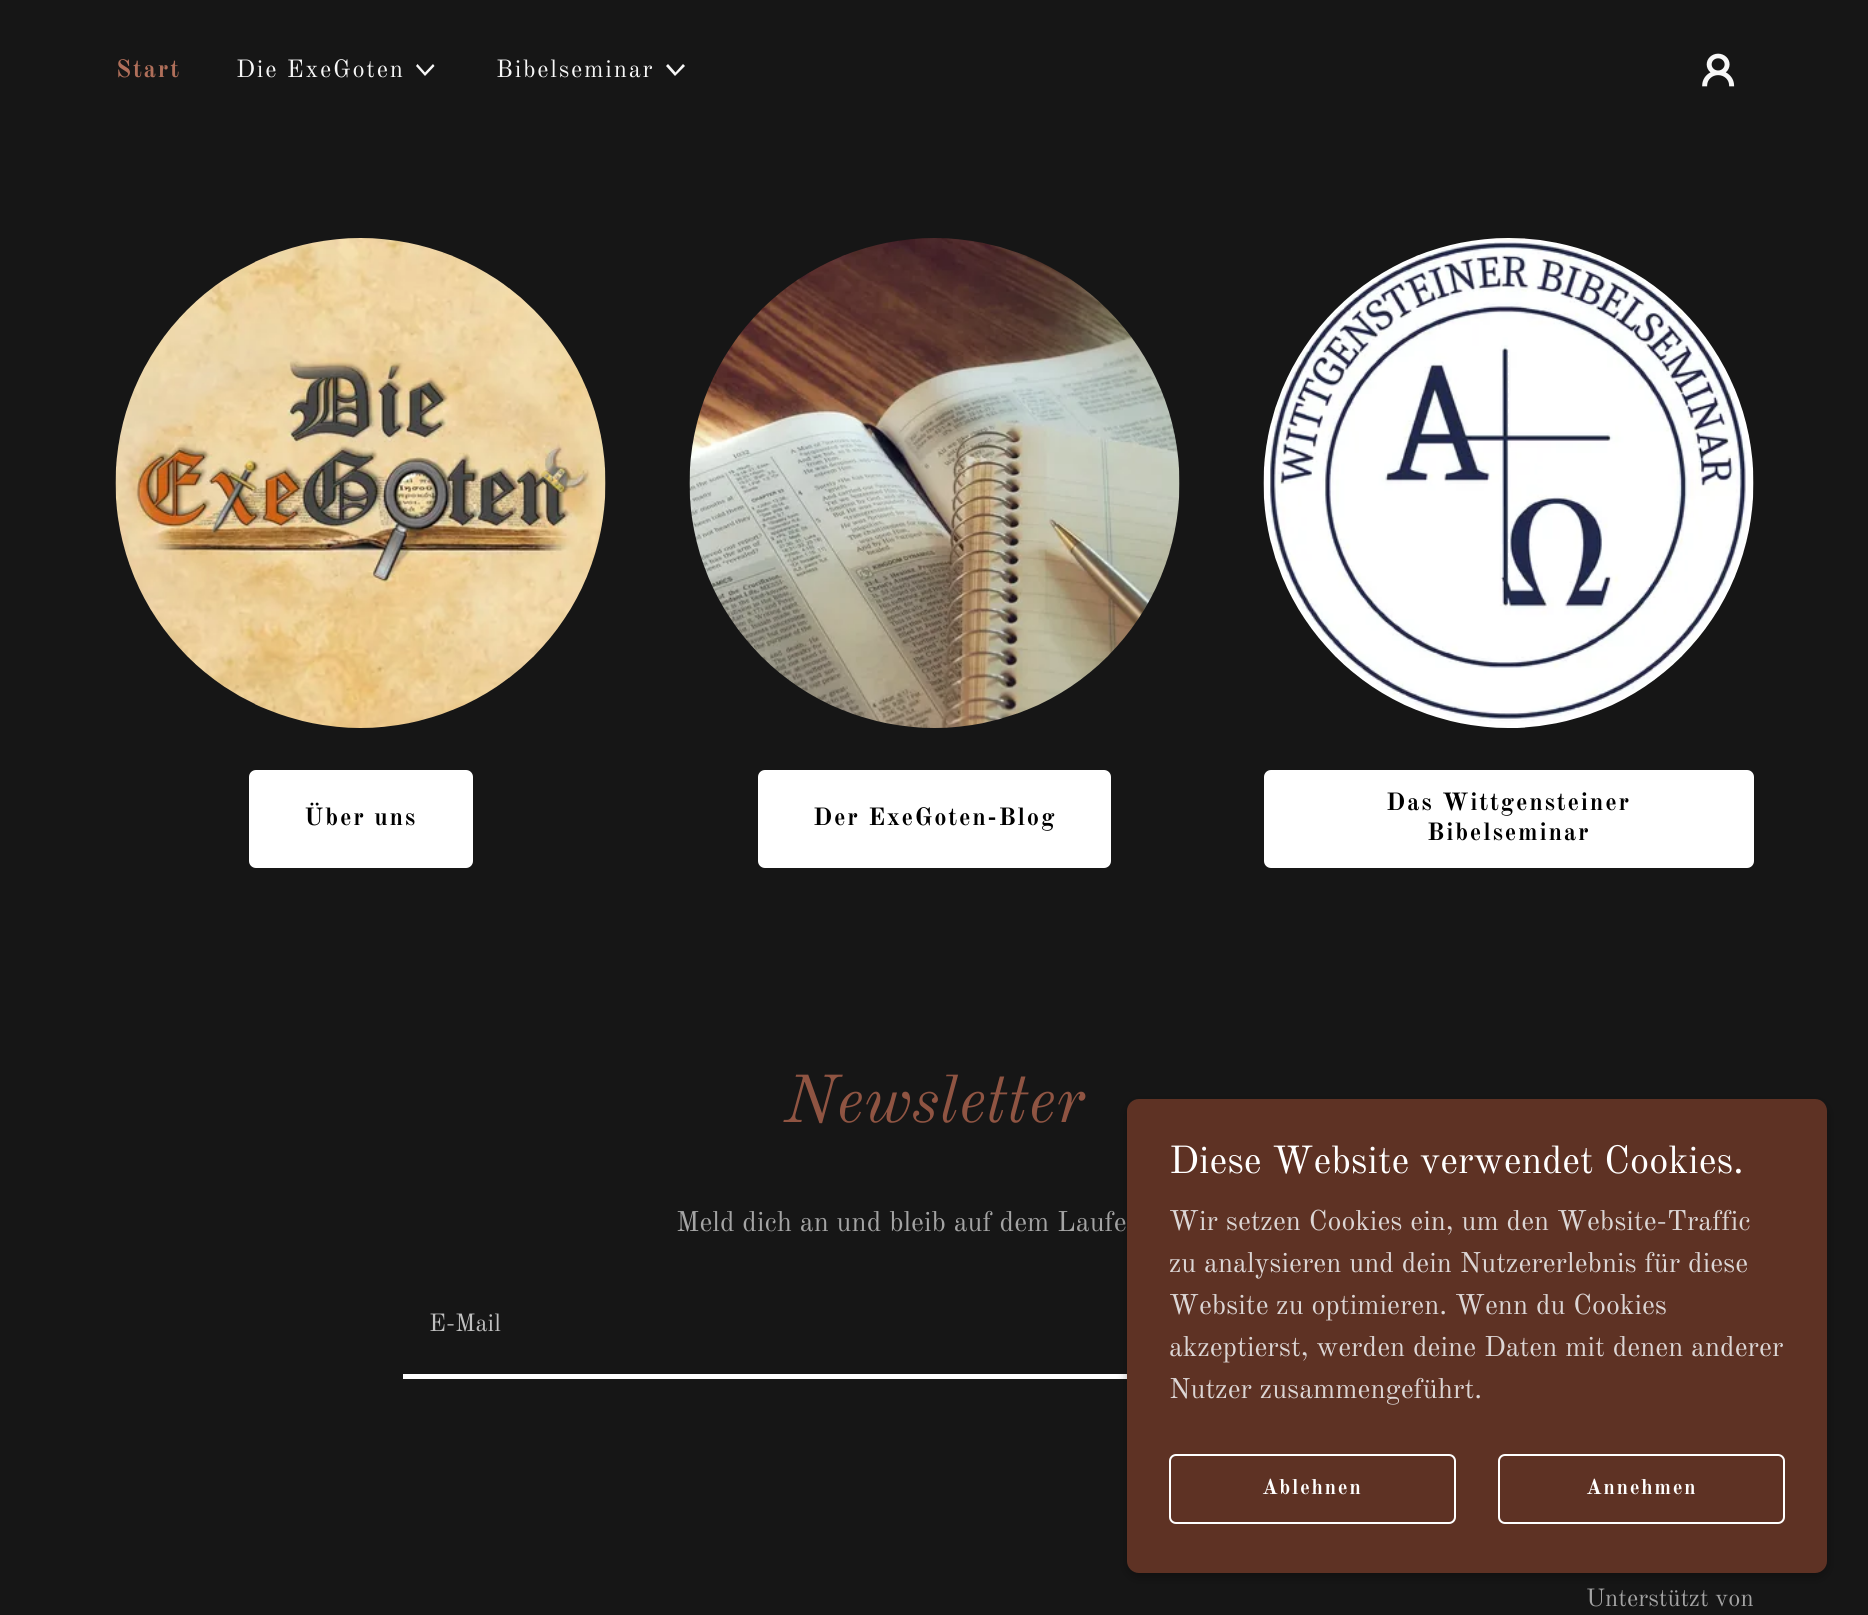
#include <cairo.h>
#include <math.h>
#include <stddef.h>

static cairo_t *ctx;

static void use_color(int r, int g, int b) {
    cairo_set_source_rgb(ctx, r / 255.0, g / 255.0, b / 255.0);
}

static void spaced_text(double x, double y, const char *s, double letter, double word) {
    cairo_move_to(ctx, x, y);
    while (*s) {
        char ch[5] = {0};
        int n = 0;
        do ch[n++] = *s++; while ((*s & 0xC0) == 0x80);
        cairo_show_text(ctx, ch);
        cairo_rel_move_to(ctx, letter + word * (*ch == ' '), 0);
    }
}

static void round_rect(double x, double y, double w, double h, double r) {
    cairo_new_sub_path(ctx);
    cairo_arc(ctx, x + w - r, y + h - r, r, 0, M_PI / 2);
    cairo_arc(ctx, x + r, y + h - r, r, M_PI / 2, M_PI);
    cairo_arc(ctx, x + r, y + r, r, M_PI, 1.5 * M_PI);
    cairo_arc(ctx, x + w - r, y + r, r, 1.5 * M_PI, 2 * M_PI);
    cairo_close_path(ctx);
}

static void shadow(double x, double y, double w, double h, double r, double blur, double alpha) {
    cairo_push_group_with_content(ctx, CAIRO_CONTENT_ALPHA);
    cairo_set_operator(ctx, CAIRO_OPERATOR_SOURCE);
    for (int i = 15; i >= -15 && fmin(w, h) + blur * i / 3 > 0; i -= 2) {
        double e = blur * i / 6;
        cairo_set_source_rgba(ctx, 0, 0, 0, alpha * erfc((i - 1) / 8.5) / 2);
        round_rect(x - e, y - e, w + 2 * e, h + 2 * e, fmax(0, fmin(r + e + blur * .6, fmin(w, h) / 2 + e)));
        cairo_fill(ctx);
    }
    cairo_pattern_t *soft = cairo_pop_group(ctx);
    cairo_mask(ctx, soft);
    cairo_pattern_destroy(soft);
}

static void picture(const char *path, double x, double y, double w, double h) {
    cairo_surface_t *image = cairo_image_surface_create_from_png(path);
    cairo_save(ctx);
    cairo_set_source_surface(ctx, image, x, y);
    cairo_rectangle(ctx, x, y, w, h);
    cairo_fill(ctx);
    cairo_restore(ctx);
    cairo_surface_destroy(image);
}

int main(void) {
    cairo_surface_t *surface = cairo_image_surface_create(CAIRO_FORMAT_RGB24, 1868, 1615);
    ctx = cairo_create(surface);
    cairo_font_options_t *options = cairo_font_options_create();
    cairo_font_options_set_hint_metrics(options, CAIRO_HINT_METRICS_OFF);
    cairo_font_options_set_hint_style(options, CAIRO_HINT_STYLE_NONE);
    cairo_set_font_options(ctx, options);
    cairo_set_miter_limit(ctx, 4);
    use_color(22, 22, 22);
    cairo_paint(ctx);
    cairo_select_font_face(ctx, "Old Standard TT", CAIRO_FONT_SLANT_NORMAL, CAIRO_FONT_WEIGHT_BOLD);
    cairo_set_font_size(ctx, 24.5);
    use_color(176, 111, 90);
    spaced_text(116, 77, "Start", 1.75, 0);
    cairo_select_font_face(ctx, "Old Standard TT", CAIRO_FONT_SLANT_NORMAL, CAIRO_FONT_WEIGHT_NORMAL);
    use_color(247, 247, 247);
    spaced_text(236, 77, "Die ExeGoten", 1.75, 0);
    cairo_set_fill_rule(ctx, CAIRO_FILL_RULE_EVEN_ODD);
    cairo_new_path(ctx);
    cairo_move_to(ctx, 433, 64);
    cairo_line_to(ctx, 425, 72.5);
    cairo_line_to(ctx, 417.5, 64);
    cairo_line_to(ctx, 416, 66);
    cairo_line_to(ctx, 425, 76);
    cairo_line_to(ctx, 434.5, 66);
    cairo_close_path(ctx);
    cairo_fill(ctx);
    spaced_text(496, 77, "Bibelseminar", 1.75, 0);
    cairo_new_path(ctx);
    cairo_move_to(ctx, 683, 64);
    cairo_line_to(ctx, 675.5, 72.5);
    cairo_line_to(ctx, 668, 64);
    cairo_line_to(ctx, 666, 66);
    cairo_line_to(ctx, 675, 76);
    cairo_line_to(ctx, 685, 66);
    cairo_close_path(ctx);
    cairo_fill(ctx);
    picture("img1.png", 1702, 53, 33, 34);
    picture("img2.png", 115, 238, 491, 490);
    use_color(255, 255, 255);
    round_rect(249, 770, 224, 98, 7);
    cairo_fill(ctx);
    cairo_select_font_face(ctx, "Old Standard TT", CAIRO_FONT_SLANT_NORMAL, CAIRO_FONT_WEIGHT_BOLD);
    use_color(0, 0, 0);
    spaced_text(304, 825, "Über uns", 1.75, 0);
    picture("img3.png", 689, 238, 491, 490);
    use_color(255, 255, 255);
    round_rect(758, 770, 353, 98, 7);
    cairo_fill(ctx);
    use_color(0, 0, 0);
    spaced_text(813, 825, "Der ExeGoten-Blog", 1.75, 0);
    picture("img4.png", 1263, 238, 491, 490);
    use_color(255, 255, 255);
    round_rect(1264, 770, 490, 98, 7);
    cairo_fill(ctx);
    use_color(0, 0, 0);
    spaced_text(1386, 810, "Das Wittgensteiner", 1.75, 0);
    spaced_text(1427, 840, "Bibelseminar", 1.75, 0);
    cairo_select_font_face(ctx, "Old Standard TT", CAIRO_FONT_SLANT_ITALIC, CAIRO_FONT_WEIGHT_NORMAL);
    cairo_set_font_size(ctx, 66.5);
    use_color(143, 84, 66);
    cairo_move_to(ctx, 784, 1122);
    cairo_show_text(ctx, "Newsletter");
    cairo_select_font_face(ctx, "Old Standard TT", CAIRO_FONT_SLANT_NORMAL, CAIRO_FONT_WEIGHT_NORMAL);
    cairo_set_font_size(ctx, 28);
    use_color(164, 164, 164);
    cairo_move_to(ctx, 676, 1231);
    cairo_show_text(ctx, "Meld dich an und bleib auf dem Laufe");
    cairo_set_font_size(ctx, 24.5);
    use_color(191, 191, 191);
    cairo_move_to(ctx, 429, 1331);
    cairo_show_text(ctx, "E-Mail");
    use_color(255, 255, 255);
    cairo_rectangle(ctx, 403, 1374, 724, 5);
    cairo_fill(ctx);
    use_color(0, 0, 0);
    shadow(1127, 1103, 700, 474, 12, 5, 0.3);
    use_color(94, 50, 36);
    round_rect(1127, 1099, 700, 474, 12);
    cairo_fill(ctx);
    cairo_set_font_size(ctx, 38.5);
    use_color(255, 255, 255);
    cairo_move_to(ctx, 1169, 1173);
    cairo_show_text(ctx, "Diese Website verwendet Cookies.");
    cairo_set_font_size(ctx, 28);
    use_color(220, 214, 213);
    cairo_move_to(ctx, 1169, 1230);
    cairo_show_text(ctx, "Wir setzen Cookies ein, um den Website-Traffic");
    cairo_move_to(ctx, 1169, 1272);
    cairo_show_text(ctx, "zu analysieren und dein Nutzererlebnis für diese");
    cairo_move_to(ctx, 1169, 1314);
    cairo_show_text(ctx, "Website zu optimieren. Wenn du Cookies");
    cairo_move_to(ctx, 1169, 1356);
    cairo_show_text(ctx, "akzeptierst, werden deine Daten mit denen anderer");
    cairo_move_to(ctx, 1169, 1398);
    cairo_show_text(ctx, "Nutzer zusammengeführt.");
    round_rect(1170, 1455, 285, 68, 6);
    use_color(255, 255, 255);
    cairo_stroke(ctx);
    cairo_select_font_face(ctx, "Old Standard TT", CAIRO_FONT_SLANT_NORMAL, CAIRO_FONT_WEIGHT_BOLD);
    cairo_set_font_size(ctx, 21);
    spaced_text(1262, 1494, "Ablehnen", 1.5, 0);
    round_rect(1499, 1455, 285, 68, 6);
    cairo_stroke(ctx);
    spaced_text(1586, 1494, "Annehmen", 1.5, 0);
    cairo_select_font_face(ctx, "Old Standard TT", CAIRO_FONT_SLANT_NORMAL, CAIRO_FONT_WEIGHT_NORMAL);
    cairo_set_font_size(ctx, 24.5);
    use_color(164, 164, 164);
    cairo_move_to(ctx, 1586, 1606);
    cairo_show_text(ctx, "Unterstützt von");
    cairo_surface_write_to_png(surface, "result.png");
    cairo_font_options_destroy(options);
    cairo_destroy(ctx);
    cairo_surface_destroy(surface);
    return 0;
}
